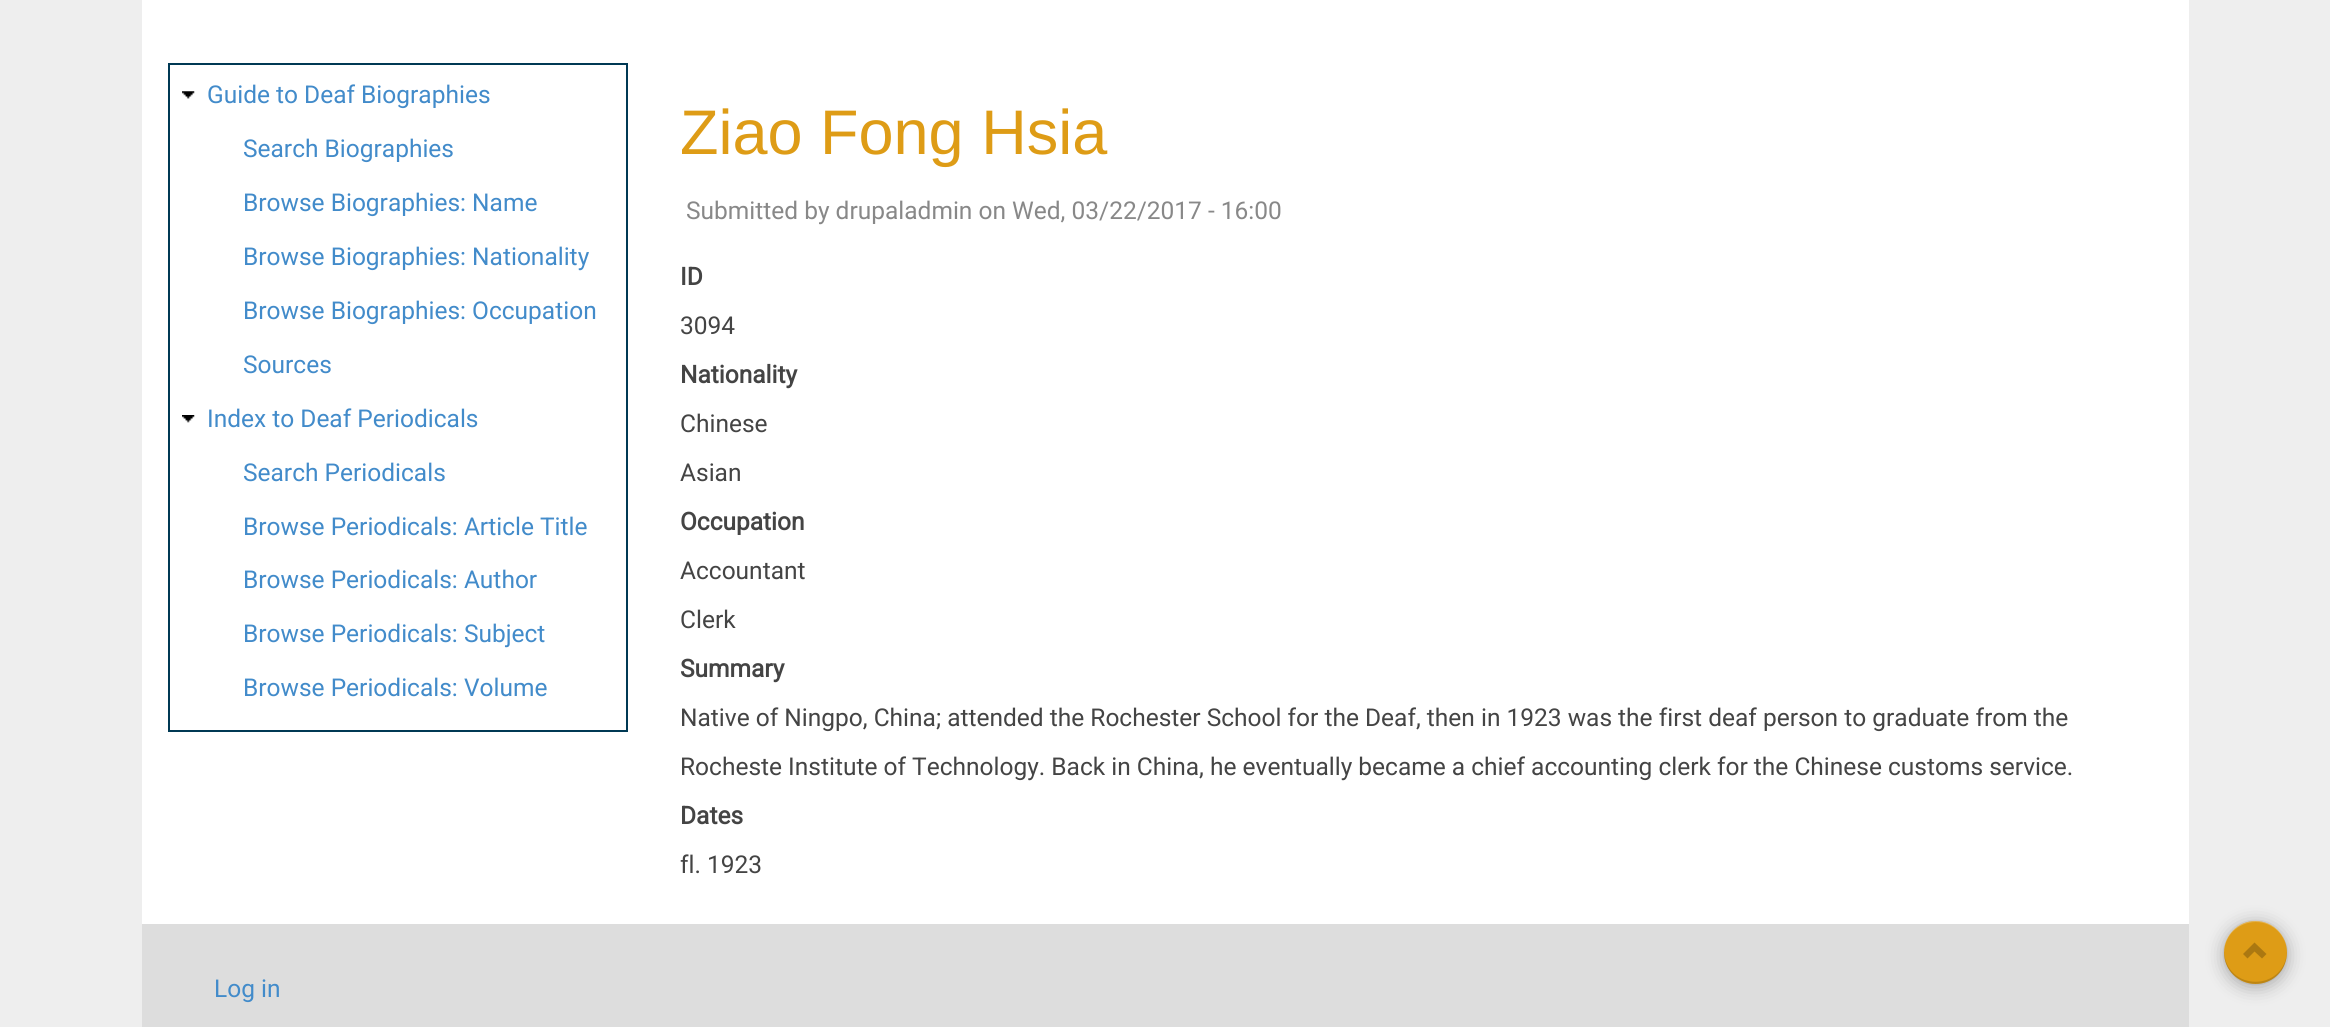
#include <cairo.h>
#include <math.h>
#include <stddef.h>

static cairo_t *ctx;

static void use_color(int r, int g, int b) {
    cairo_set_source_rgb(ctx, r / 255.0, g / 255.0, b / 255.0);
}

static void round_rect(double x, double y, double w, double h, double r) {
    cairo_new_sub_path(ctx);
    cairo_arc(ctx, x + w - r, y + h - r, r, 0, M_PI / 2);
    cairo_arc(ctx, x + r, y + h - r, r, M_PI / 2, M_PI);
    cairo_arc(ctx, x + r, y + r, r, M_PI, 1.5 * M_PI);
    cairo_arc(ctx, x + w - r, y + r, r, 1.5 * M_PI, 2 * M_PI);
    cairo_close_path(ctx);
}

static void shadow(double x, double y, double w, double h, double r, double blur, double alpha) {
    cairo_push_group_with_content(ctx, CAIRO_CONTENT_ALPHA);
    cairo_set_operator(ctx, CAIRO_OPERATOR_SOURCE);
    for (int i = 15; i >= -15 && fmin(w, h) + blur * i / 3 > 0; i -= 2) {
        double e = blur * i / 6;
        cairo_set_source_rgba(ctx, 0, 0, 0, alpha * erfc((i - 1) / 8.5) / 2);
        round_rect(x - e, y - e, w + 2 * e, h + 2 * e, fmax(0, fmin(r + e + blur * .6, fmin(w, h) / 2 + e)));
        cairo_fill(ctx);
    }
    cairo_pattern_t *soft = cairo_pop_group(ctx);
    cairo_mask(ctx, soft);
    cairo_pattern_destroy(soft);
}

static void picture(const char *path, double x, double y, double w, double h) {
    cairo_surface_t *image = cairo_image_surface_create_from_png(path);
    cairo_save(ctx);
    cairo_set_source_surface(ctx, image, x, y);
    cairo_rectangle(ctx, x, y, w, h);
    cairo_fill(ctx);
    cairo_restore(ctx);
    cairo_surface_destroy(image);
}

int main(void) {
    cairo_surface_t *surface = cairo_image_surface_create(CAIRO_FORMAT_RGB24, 2330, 1027);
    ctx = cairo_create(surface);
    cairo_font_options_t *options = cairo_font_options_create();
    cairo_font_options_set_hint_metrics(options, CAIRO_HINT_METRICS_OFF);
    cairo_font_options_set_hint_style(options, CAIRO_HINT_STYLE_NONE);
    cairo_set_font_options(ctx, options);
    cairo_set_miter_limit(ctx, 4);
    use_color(238, 238, 238);
    cairo_paint(ctx);
    use_color(255, 255, 255);
    cairo_rectangle(ctx, 142, 0, 2047, 924);
    cairo_fill(ctx);
    cairo_rectangle(ctx, 169, 64, 458, 667);
    use_color(0, 57, 84);
    cairo_stroke(ctx);
    picture("img1.png", 182, 91, 13, 8);
    cairo_select_font_face(ctx, "Roboto", CAIRO_FONT_SLANT_NORMAL, CAIRO_FONT_WEIGHT_NORMAL);
    cairo_set_font_size(ctx, 24.5);
    use_color(66, 139, 202);
    cairo_move_to(ctx, 207, 103);
    cairo_show_text(ctx, "Guide to Deaf Biographies");
    cairo_move_to(ctx, 243, 157);
    cairo_show_text(ctx, "Search Biographies");
    cairo_move_to(ctx, 243, 211);
    cairo_show_text(ctx, "Browse Biographies: Name");
    cairo_move_to(ctx, 243, 265);
    cairo_show_text(ctx, "Browse Biographies: Nationality");
    cairo_move_to(ctx, 243, 319);
    cairo_show_text(ctx, "Browse Biographies: Occupation");
    cairo_move_to(ctx, 243, 373);
    cairo_show_text(ctx, "Sources");
    picture("img2.png", 182, 415, 13, 8);
    cairo_move_to(ctx, 207, 427);
    cairo_show_text(ctx, "Index to Deaf Periodicals");
    cairo_move_to(ctx, 243, 481);
    cairo_show_text(ctx, "Search Periodicals");
    cairo_move_to(ctx, 243, 535);
    cairo_show_text(ctx, "Browse Periodicals: Article Title");
    cairo_move_to(ctx, 243, 588);
    cairo_show_text(ctx, "Browse Periodicals: Author");
    cairo_move_to(ctx, 243, 642);
    cairo_show_text(ctx, "Browse Periodicals: Subject");
    cairo_move_to(ctx, 243, 696);
    cairo_show_text(ctx, "Browse Periodicals: Volume");
    cairo_select_font_face(ctx, "Liberation Sans", CAIRO_FONT_SLANT_NORMAL, CAIRO_FONT_WEIGHT_NORMAL);
    cairo_set_font_size(ctx, 63);
    use_color(222, 156, 22);
    cairo_move_to(ctx, 680, 154);
    cairo_show_text(ctx, "Ziao Fong Hsia");
    cairo_select_font_face(ctx, "Roboto", CAIRO_FONT_SLANT_NORMAL, CAIRO_FONT_WEIGHT_NORMAL);
    cairo_set_font_size(ctx, 24.5);
    use_color(136, 136, 136);
    cairo_move_to(ctx, 686, 219);
    cairo_show_text(ctx, "Submitted by drupaladmin on Wed, 03/22/2017 - 16:00");
    cairo_select_font_face(ctx, "Roboto", CAIRO_FONT_SLANT_NORMAL, CAIRO_FONT_WEIGHT_BOLD);
    use_color(68, 68, 68);
    cairo_move_to(ctx, 680, 285);
    cairo_show_text(ctx, "ID");
    cairo_select_font_face(ctx, "Roboto", CAIRO_FONT_SLANT_NORMAL, CAIRO_FONT_WEIGHT_NORMAL);
    cairo_move_to(ctx, 680, 334);
    cairo_show_text(ctx, "3094");
    cairo_select_font_face(ctx, "Roboto", CAIRO_FONT_SLANT_NORMAL, CAIRO_FONT_WEIGHT_BOLD);
    cairo_move_to(ctx, 680, 383);
    cairo_show_text(ctx, "Nationality");
    cairo_select_font_face(ctx, "Roboto", CAIRO_FONT_SLANT_NORMAL, CAIRO_FONT_WEIGHT_NORMAL);
    cairo_move_to(ctx, 680, 432);
    cairo_show_text(ctx, "Chinese");
    cairo_move_to(ctx, 680, 481);
    cairo_show_text(ctx, "Asian");
    cairo_select_font_face(ctx, "Roboto", CAIRO_FONT_SLANT_NORMAL, CAIRO_FONT_WEIGHT_BOLD);
    cairo_move_to(ctx, 680, 530);
    cairo_show_text(ctx, "Occupation");
    cairo_select_font_face(ctx, "Roboto", CAIRO_FONT_SLANT_NORMAL, CAIRO_FONT_WEIGHT_NORMAL);
    cairo_move_to(ctx, 680, 579);
    cairo_show_text(ctx, "Accountant");
    cairo_move_to(ctx, 680, 628);
    cairo_show_text(ctx, "Clerk");
    cairo_select_font_face(ctx, "Roboto", CAIRO_FONT_SLANT_NORMAL, CAIRO_FONT_WEIGHT_BOLD);
    cairo_move_to(ctx, 680, 677);
    cairo_show_text(ctx, "Summary");
    cairo_select_font_face(ctx, "Roboto", CAIRO_FONT_SLANT_NORMAL, CAIRO_FONT_WEIGHT_NORMAL);
    cairo_move_to(ctx, 680, 726);
    cairo_show_text(ctx, "Native of Ningpo, China; attended the Rochester School for the Deaf, then in 1923 was the first deaf person to graduate from the");
    cairo_move_to(ctx, 680, 775);
    cairo_show_text(ctx, "Rocheste Institute of Technology. Back in China, he eventually became a chief accounting clerk for the Chinese customs service.");
    cairo_select_font_face(ctx, "Roboto", CAIRO_FONT_SLANT_NORMAL, CAIRO_FONT_WEIGHT_BOLD);
    cairo_move_to(ctx, 680, 824);
    cairo_show_text(ctx, "Dates");
    cairo_select_font_face(ctx, "Roboto", CAIRO_FONT_SLANT_NORMAL, CAIRO_FONT_WEIGHT_NORMAL);
    cairo_move_to(ctx, 680, 873);
    cairo_show_text(ctx, "fl. 1923");
    use_color(221, 221, 221);
    cairo_rectangle(ctx, 142, 924, 2047, 103);
    cairo_fill(ctx);
    use_color(66, 139, 202);
    cairo_move_to(ctx, 214, 997);
    cairo_show_text(ctx, "Log in");
    use_color(0, 0, 0);
    shadow(2224, 921, 63, 63, 31.5, 1, 0.1);
    shadow(2224, 924, 63, 63, 31.5, 9, 0.3);
    use_color(222, 156, 22);
    cairo_arc(ctx, 2255.5, 952.5, 31.5, 0, 2 * M_PI);
    cairo_fill(ctx);
    cairo_set_source_rgba(ctx, 0, 0, 0, 0.15);
    cairo_new_path(ctx);
    cairo_move_to(ctx, 2224, 951);
    cairo_curve_to(ctx, 2223, 983, 2264, 996, 2282, 970);
    cairo_curve_to(ctx, 2285, 965, 2287, 958, 2287, 951);
    cairo_curve_to(ctx, 2285, 992, 2226, 992, 2224, 951);
    cairo_close_path(ctx);
    cairo_fill(ctx);
    cairo_set_source_rgba(ctx, 1, 1, 1, 0.25);
    cairo_new_path(ctx);
    cairo_move_to(ctx, 2256, 922);
    cairo_curve_to(ctx, 2273, 922, 2287, 936, 2287, 953);
    cairo_curve_to(ctx, 2287, 947, 2285, 940, 2282, 935);
    cairo_curve_to(ctx, 2264, 909, 2223, 922, 2224, 953);
    cairo_curve_to(ctx, 2224, 936, 2238, 922, 2256, 922);
    cairo_close_path(ctx);
    cairo_fill(ctx);
    use_color(171, 120, 17);
    cairo_new_path(ctx);
    cairo_move_to(ctx, 2262, 958.5);
    cairo_line_to(ctx, 2266.5, 954);
    cairo_line_to(ctx, 2254.5, 942.5);
    cairo_line_to(ctx, 2243, 954);
    cairo_line_to(ctx, 2247.5, 958.5);
    cairo_line_to(ctx, 2254.5, 951.5);
    cairo_close_path(ctx);
    cairo_fill(ctx);
    cairo_surface_write_to_png(surface, "result.png");
    cairo_font_options_destroy(options);
    cairo_destroy(ctx);
    cairo_surface_destroy(surface);
    return 0;
}
